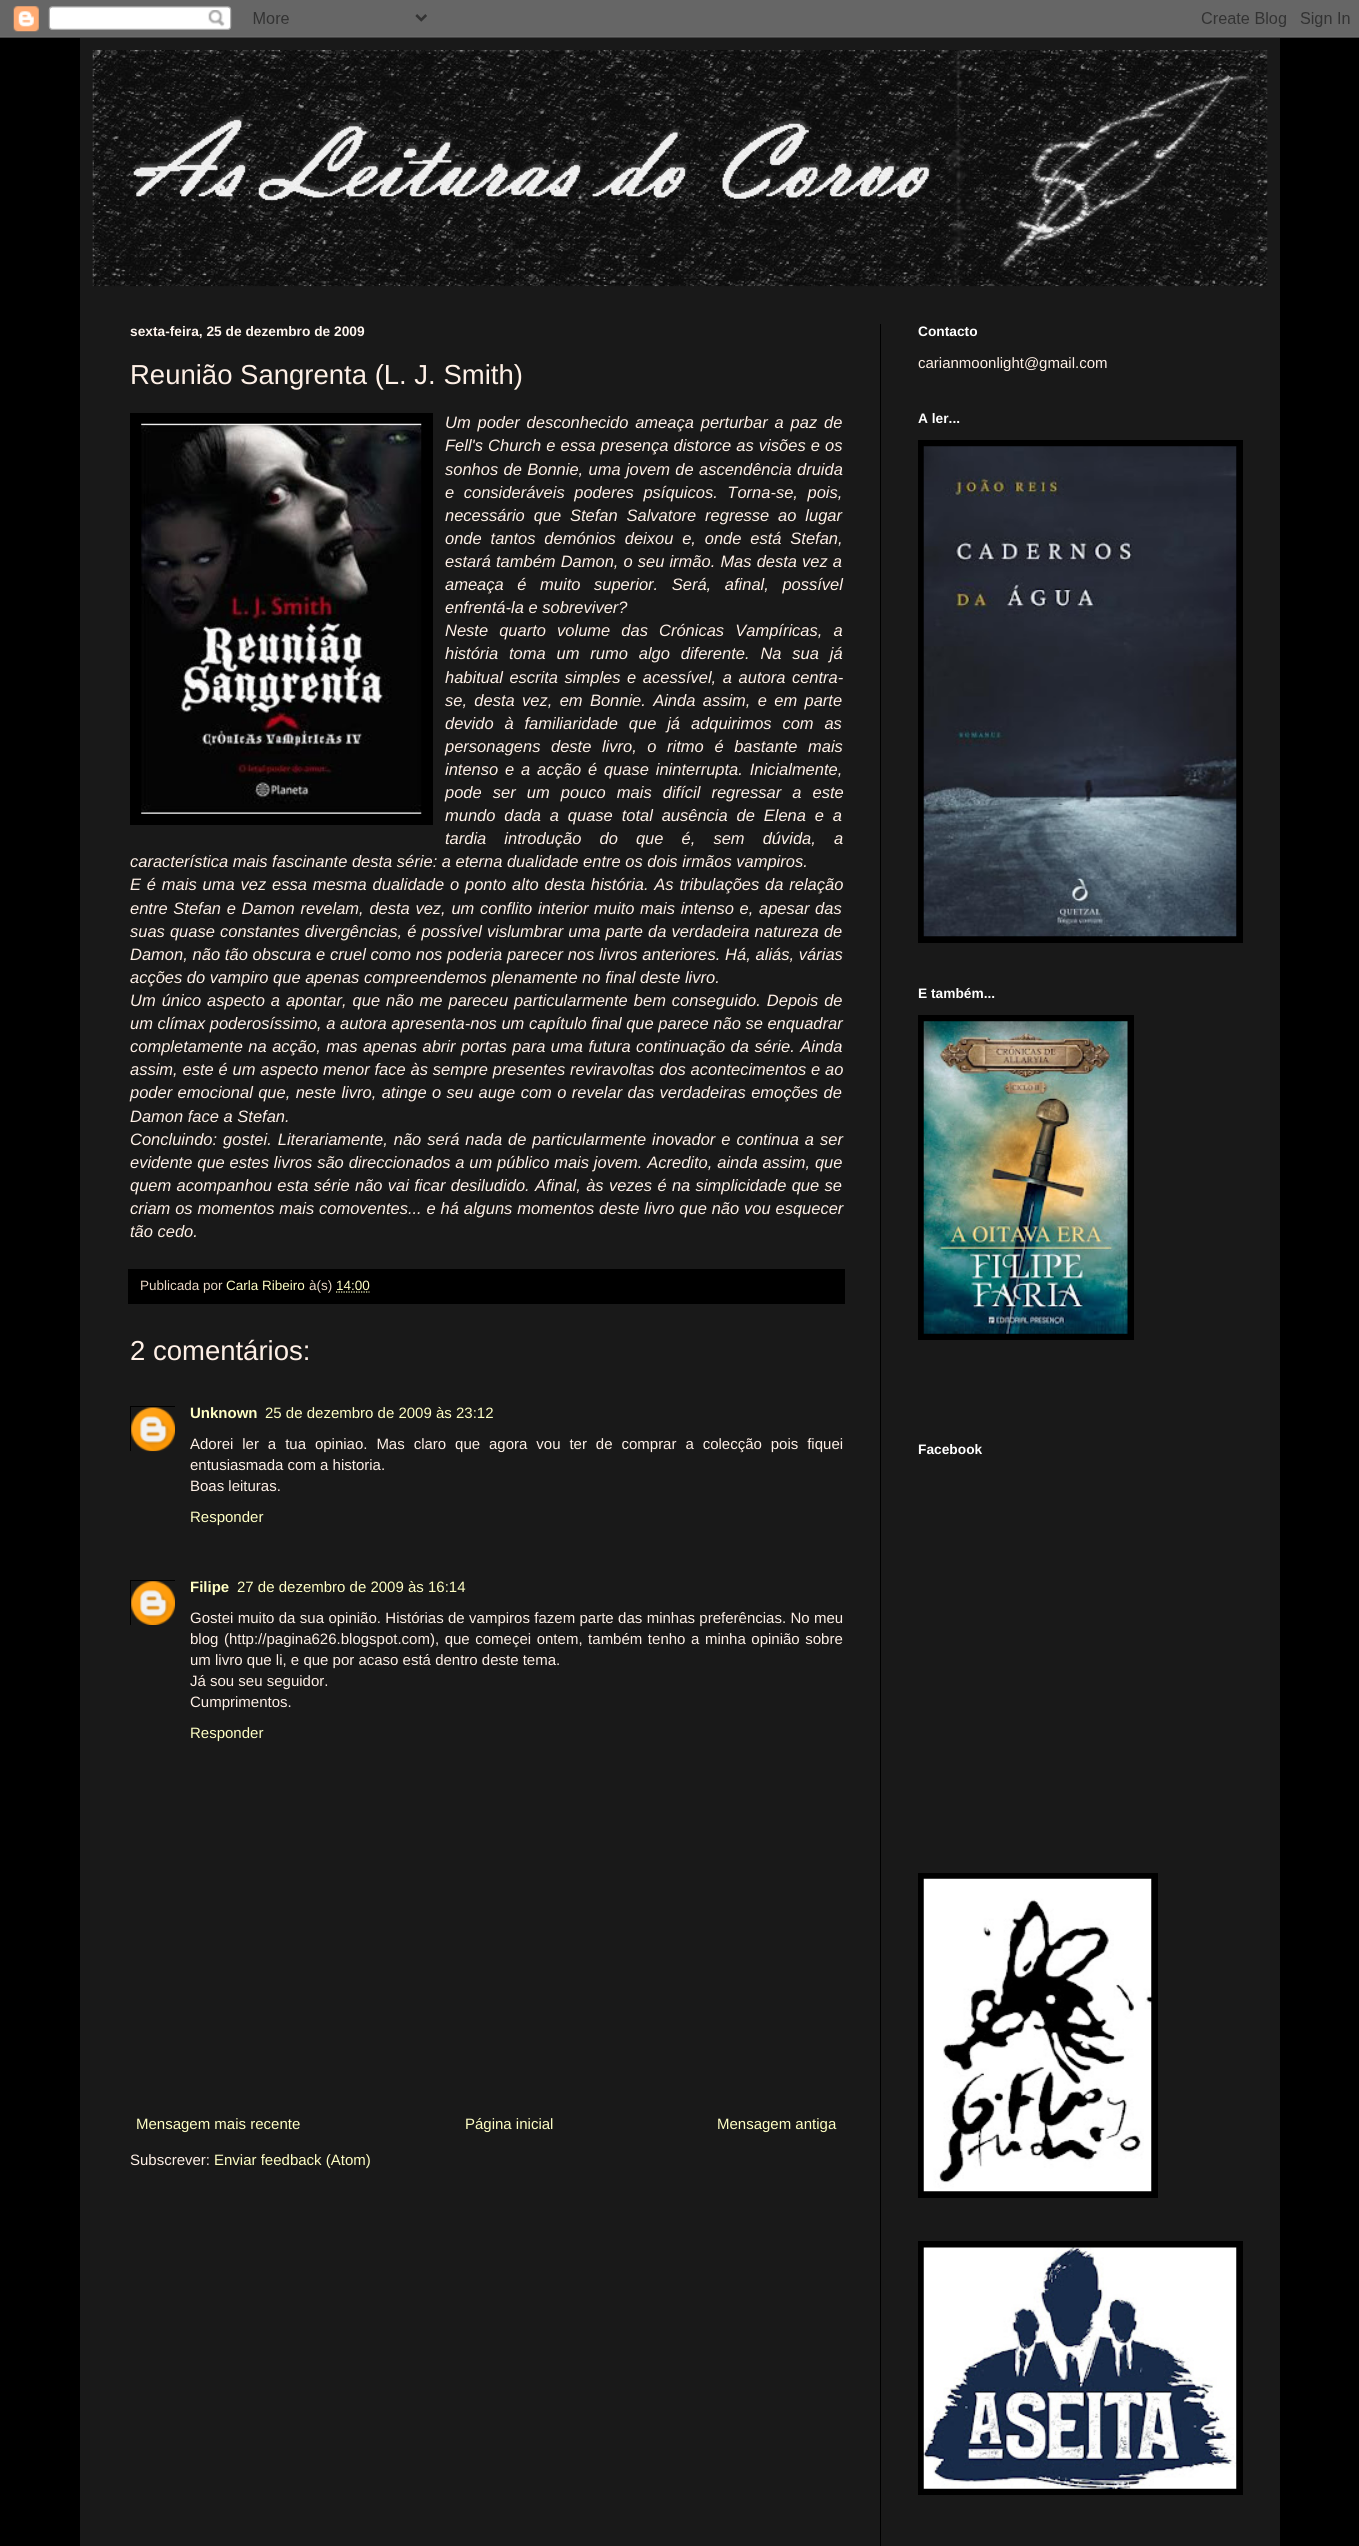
#include <cairo.h>
#include <math.h>
#include <stddef.h>

static cairo_t *ctx;

static void use_color(int r, int g, int b) {
    cairo_set_source_rgb(ctx, r / 255.0, g / 255.0, b / 255.0);
}

static void spaced_text(double x, double y, const char *s, double letter, double word) {
    cairo_move_to(ctx, x, y);
    while (*s) {
        char ch[5] = {0};
        int n = 0;
        do ch[n++] = *s++; while ((*s & 0xC0) == 0x80);
        cairo_show_text(ctx, ch);
        cairo_rel_move_to(ctx, letter + word * (*ch == ' '), 0);
    }
}

static void picture(const char *path, double x, double y, double w, double h) {
    cairo_surface_t *image = cairo_image_surface_create_from_png(path);
    cairo_save(ctx);
    cairo_set_source_surface(ctx, image, x, y);
    cairo_rectangle(ctx, x, y, w, h);
    cairo_fill(ctx);
    cairo_restore(ctx);
    cairo_surface_destroy(image);
}

int main(void) {
    cairo_surface_t *surface = cairo_image_surface_create(CAIRO_FORMAT_RGB24, 1359, 2546);
    ctx = cairo_create(surface);
    cairo_font_options_t *options = cairo_font_options_create();
    cairo_font_options_set_hint_metrics(options, CAIRO_HINT_METRICS_OFF);
    cairo_font_options_set_hint_style(options, CAIRO_HINT_STYLE_NONE);
    cairo_set_font_options(ctx, options);
    cairo_set_miter_limit(ctx, 4);
    use_color(0, 0, 0);
    cairo_paint(ctx);
    picture("img1.png", 0, 0, 1359, 38);
    use_color(25, 25, 25);
    cairo_rectangle(ctx, 80, 38, 1200, 2508);
    cairo_fill(ctx);
    picture("img2.png", 92, 50, 1176, 237);
    use_color(0, 0, 0);
    cairo_rectangle(ctx, 880, 324, 1, 2222);
    cairo_fill(ctx);
    cairo_select_font_face(ctx, "Liberation Sans", CAIRO_FONT_SLANT_NORMAL, CAIRO_FONT_WEIGHT_BOLD);
    cairo_set_font_size(ctx, 13.75);
    use_color(255, 245, 238);
    cairo_move_to(ctx, 130, 336);
    cairo_show_text(ctx, "sexta-feira, 25 de dezembro de 2009");
    cairo_select_font_face(ctx, "Liberation Sans", CAIRO_FONT_SLANT_NORMAL, CAIRO_FONT_WEIGHT_NORMAL);
    cairo_set_font_size(ctx, 27.5);
    use_color(255, 240, 230);
    cairo_move_to(ctx, 130, 384);
    cairo_show_text(ctx, "Reunião Sangrenta (L. J. Smith)");
    use_color(0, 0, 0);
    cairo_rectangle(ctx, 130, 413, 303, 412);
    cairo_fill(ctx);
    picture("img3.png", 141, 423, 281, 391);
    cairo_select_font_face(ctx, "Liberation Sans", CAIRO_FONT_SLANT_ITALIC, CAIRO_FONT_WEIGHT_NORMAL);
    cairo_set_font_size(ctx, 16.5);
    use_color(255, 240, 230);
    spaced_text(445, 428, "Um poder desconhecido ameaça perturbar a paz de", 0, 2.25);
    spaced_text(445, 451, "Fell's Church e essa presença distorce as visões e os", 0, 0.5);
    spaced_text(445, 475, "sonhos de Bonnie, uma jovem de ascendência druida", 0, 0.75);
    spaced_text(445, 498, "e consideráveis poderes psíquicos. Torna-se, pois,", 0, 5);
    spaced_text(445, 521, "necessário que Stefan Salvatore regresse ao lugar", 0, 4.25);
    spaced_text(445, 544, "onde tantos demónios deixou e, onde está Stefan,", 0, 4.25);
    spaced_text(445, 567, "estará também Damon, o seu irmão. Mas desta vez a", 0, 0.5);
    spaced_text(445, 590, "ameaça é muito superior. Será, afinal, possível", 0, 9);
    cairo_move_to(ctx, 445, 613);
    cairo_show_text(ctx, "enfrentá-la e sobreviver?");
    spaced_text(445, 636, "Neste quarto volume das Crónicas Vampíricas, a", 0, 6.5);
    spaced_text(445, 659, "história toma um rumo algo diferente. Na sua já", 0, 6.25);
    spaced_text(445, 683, "habitual escrita simples e acessível, a autora centra-", 0, 2);
    spaced_text(445, 706, "se, desta vez, em Bonnie. Ainda assim, e em parte", 0, 2.75);
    spaced_text(445, 729, "devido à familiaridade que já adquirimos com as", 0, 6.25);
    spaced_text(445, 752, "personagens deste livro, o ritmo é bastante mais", 0, 6);
    spaced_text(445, 775, "intenso e a acção é quase ininterrupta. Inicialmente,", 0, 2.25);
    spaced_text(445, 798, "pode ser um pouco mais difícil regressar a este", 0, 6.5);
    spaced_text(445, 821, "mundo dada a quase total ausência de Elena e a", 0, 4.25);
    spaced_text(445, 844, "tardia introdução do que é, sem dúvida, a", 0, 13.5);
    cairo_move_to(ctx, 130, 867);
    cairo_show_text(ctx, "característica mais fascinante desta série: a eterna dualidade entre os dois irmãos vampiros.");
    spaced_text(130, 890, "E é mais uma vez essa mesma dualidade o ponto alto desta história. As tribulações da relação", 0, 1.25);
    spaced_text(130, 914, "entre Stefan e Damon revelam, desta vez, um conflito interior muito mais intenso e, apesar das", 0, 1.1);
    spaced_text(130, 937, "suas quase constantes divergências, é possível vislumbrar uma parte da verdadeira natureza de", 0, 0.5);
    spaced_text(130, 960, "Damon, não tão obscura e cruel como nos poderia parecer nos livros anteriores. Há, aliás, várias", 0, 0.2);
    cairo_move_to(ctx, 130, 983);
    cairo_show_text(ctx, "acções do vampiro que apenas compreendemos plenamente no final deste livro.");
    spaced_text(130, 1006, "Um único aspecto a apontar, que não me pareceu particularmente bem conseguido. Depois de", 0, 1.4);
    cairo_move_to(ctx, 130, 1029);
    cairo_show_text(ctx, "um clímax poderosíssimo, a autora apresenta-nos um capítulo final que parece não se enquadrar");
    spaced_text(130, 1052, "completamente na acção, mas apenas abrir portas para uma futura continuação da série. Ainda", 0, 0.9);
    spaced_text(130, 1075, "assim, este é um aspecto menor face às sempre presentes reviravoltas dos acontecimentos e ao", 0, 0.25);
    spaced_text(130, 1098, "poder emocional que, neste livro, atinge o seu auge com o revelar das verdadeiras emoções de", 0, 0.8);
    cairo_move_to(ctx, 130, 1122);
    cairo_show_text(ctx, "Damon face a Stefan.");
    spaced_text(130, 1145, "Concluindo: gostei. Literariamente, não será nada de particularmente inovador e continua a ser", 0, 1.4);
    spaced_text(130, 1168, "evidente que estes livros são direccionados a um público mais jovem. Acredito, ainda assim, que", 0, 0.25);
    spaced_text(130, 1191, "quem acompanhou esta série não vai ficar desiludido. Afinal, às vezes é na simplicidade que se", 0, 0.75);
    spaced_text(130, 1214, "criam os momentos mais comoventes... e há alguns momentos deste livro que não vou esquecer", 0, 0.25);
    cairo_move_to(ctx, 130, 1237);
    cairo_show_text(ctx, "tão cedo.");
    use_color(0, 0, 0);
    cairo_rectangle(ctx, 128, 1269, 717, 35);
    cairo_fill(ctx);
    cairo_select_font_face(ctx, "Liberation Sans", CAIRO_FONT_SLANT_NORMAL, CAIRO_FONT_WEIGHT_NORMAL);
    cairo_set_font_size(ctx, 13.5);
    use_color(235, 216, 197);
    cairo_move_to(ctx, 140, 1290);
    cairo_show_text(ctx, "Publicada por");
    use_color(255, 255, 195);
    cairo_move_to(ctx, 226, 1290);
    cairo_show_text(ctx, "Carla Ribeiro");
    use_color(235, 216, 197);
    cairo_move_to(ctx, 309, 1290);
    cairo_show_text(ctx, "à(s)");
    use_color(255, 255, 195);
    cairo_move_to(ctx, 336, 1290);
    cairo_show_text(ctx, "14:00");
    cairo_new_path(ctx);
    cairo_move_to(ctx, 336, 1292);
    cairo_line_to(ctx, 369.5, 1292);
    cairo_set_line_width(ctx, 1.2);
    cairo_set_dash(ctx, (double[]){1.25, 1.25}, 2, 0);
    cairo_stroke(ctx);
    cairo_set_font_size(ctx, 27.5);
    use_color(255, 240, 230);
    cairo_move_to(ctx, 130, 1360);
    cairo_show_text(ctx, "2 comentários:");
    cairo_save(ctx);
    cairo_rectangle(ctx, 130, 1406, 45, 45);
    cairo_clip(ctx);
    cairo_rectangle(ctx, 130.5, 1406.5, 45, 46);
    use_color(0, 0, 0);
    cairo_set_line_width(ctx, 1);
    cairo_set_dash(ctx, NULL, 0, 0);
    cairo_stroke(ctx);
    cairo_restore(ctx);
    picture("img4.png", 131, 1407, 44, 45);
    cairo_select_font_face(ctx, "Liberation Sans", CAIRO_FONT_SLANT_NORMAL, CAIRO_FONT_WEIGHT_BOLD);
    cairo_set_font_size(ctx, 15);
    use_color(255, 255, 195);
    cairo_move_to(ctx, 190, 1418);
    cairo_show_text(ctx, "Unknown");
    cairo_select_font_face(ctx, "Liberation Sans", CAIRO_FONT_SLANT_NORMAL, CAIRO_FONT_WEIGHT_NORMAL);
    cairo_move_to(ctx, 265, 1418);
    cairo_show_text(ctx, "25 de dezembro de 2009 às 23:12");
    use_color(255, 240, 230);
    spaced_text(190, 1449, "Adorei ler a tua opiniao. Mas claro que agora vou ter de comprar a colecção pois fiquei", 0, 4.75);
    cairo_move_to(ctx, 190, 1470);
    cairo_show_text(ctx, "entusiasmada com a historia.");
    cairo_move_to(ctx, 190, 1491);
    cairo_show_text(ctx, "Boas leituras.");
    use_color(255, 255, 195);
    cairo_move_to(ctx, 190, 1522);
    cairo_show_text(ctx, "Responder");
    cairo_save(ctx);
    cairo_rectangle(ctx, 130, 1580, 45, 45);
    cairo_clip(ctx);
    cairo_rectangle(ctx, 130.5, 1580.5, 45, 45);
    use_color(0, 0, 0);
    cairo_set_line_width(ctx, 1);
    cairo_set_dash(ctx, NULL, 0, 0);
    cairo_stroke(ctx);
    cairo_restore(ctx);
    picture("img5.png", 131, 1581, 44, 44);
    cairo_select_font_face(ctx, "Liberation Sans", CAIRO_FONT_SLANT_NORMAL, CAIRO_FONT_WEIGHT_BOLD);
    cairo_move_to(ctx, 190, 1592);
    cairo_show_text(ctx, "Filipe");
    cairo_select_font_face(ctx, "Liberation Sans", CAIRO_FONT_SLANT_NORMAL, CAIRO_FONT_WEIGHT_NORMAL);
    cairo_move_to(ctx, 237, 1592);
    cairo_show_text(ctx, "27 de dezembro de 2009 às 16:14");
    use_color(255, 240, 230);
    spaced_text(190, 1623, "Gostei muito da sua opinião. Histórias de vampiros fazem parte das minhas preferências. No meu", 0, 0.2);
    spaced_text(190, 1644, "blog (http://pagina626.blogspot.com), que começei ontem, também tenho a minha opinião sobre", 0, 1.4);
    cairo_move_to(ctx, 190, 1665);
    cairo_show_text(ctx, "um livro que li, e que por acaso está dentro deste tema.");
    cairo_move_to(ctx, 190, 1686);
    cairo_show_text(ctx, "Já sou seu seguidor.");
    cairo_move_to(ctx, 190, 1707);
    cairo_show_text(ctx, "Cumprimentos.");
    use_color(255, 255, 195);
    cairo_move_to(ctx, 190, 1738);
    cairo_show_text(ctx, "Responder");
    cairo_move_to(ctx, 136, 2129);
    cairo_show_text(ctx, "Mensagem mais recente");
    cairo_move_to(ctx, 465, 2129);
    cairo_show_text(ctx, "Página inicial");
    cairo_move_to(ctx, 717, 2129);
    cairo_show_text(ctx, "Mensagem antiga");
    use_color(255, 240, 230);
    cairo_move_to(ctx, 130, 2165);
    cairo_show_text(ctx, "Subscrever:");
    use_color(255, 255, 195);
    cairo_move_to(ctx, 214, 2165);
    cairo_show_text(ctx, "Enviar feedback (Atom)");
    cairo_select_font_face(ctx, "Liberation Sans", CAIRO_FONT_SLANT_NORMAL, CAIRO_FONT_WEIGHT_BOLD);
    cairo_set_font_size(ctx, 13.75);
    use_color(255, 255, 255);
    cairo_move_to(ctx, 918, 336);
    cairo_show_text(ctx, "Contacto");
    cairo_select_font_face(ctx, "Liberation Sans", CAIRO_FONT_SLANT_NORMAL, CAIRO_FONT_WEIGHT_NORMAL);
    cairo_set_font_size(ctx, 15);
    use_color(255, 240, 230);
    cairo_move_to(ctx, 918, 368);
    cairo_show_text(ctx, "carianmoonlight@gmail.com");
    cairo_select_font_face(ctx, "Liberation Sans", CAIRO_FONT_SLANT_NORMAL, CAIRO_FONT_WEIGHT_BOLD);
    cairo_set_font_size(ctx, 13.75);
    use_color(255, 255, 255);
    cairo_move_to(ctx, 918, 423);
    cairo_show_text(ctx, "A ler...");
    use_color(0, 0, 0);
    cairo_rectangle(ctx, 918, 440, 325, 503);
    cairo_fill(ctx);
    picture("img6.png", 923, 446, 314, 491);
    use_color(255, 255, 255);
    cairo_move_to(ctx, 918, 998);
    cairo_show_text(ctx, "E também...");
    use_color(0, 0, 0);
    cairo_rectangle(ctx, 918, 1015, 216, 325);
    cairo_fill(ctx);
    picture("img7.png", 923, 1021, 205, 313);
    use_color(255, 255, 255);
    cairo_move_to(ctx, 918, 1454);
    cairo_show_text(ctx, "Facebook");
    use_color(0, 0, 0);
    cairo_rectangle(ctx, 918, 1873, 240, 325);
    cairo_fill(ctx);
    picture("img8.png", 923, 1878, 229, 314);
    cairo_rectangle(ctx, 918, 2241, 325, 254);
    cairo_fill(ctx);
    picture("img9.png", 923, 2247, 314, 242);
    cairo_surface_write_to_png(surface, "result.png");
    cairo_font_options_destroy(options);
    cairo_destroy(ctx);
    cairo_surface_destroy(surface);
    return 0;
}
